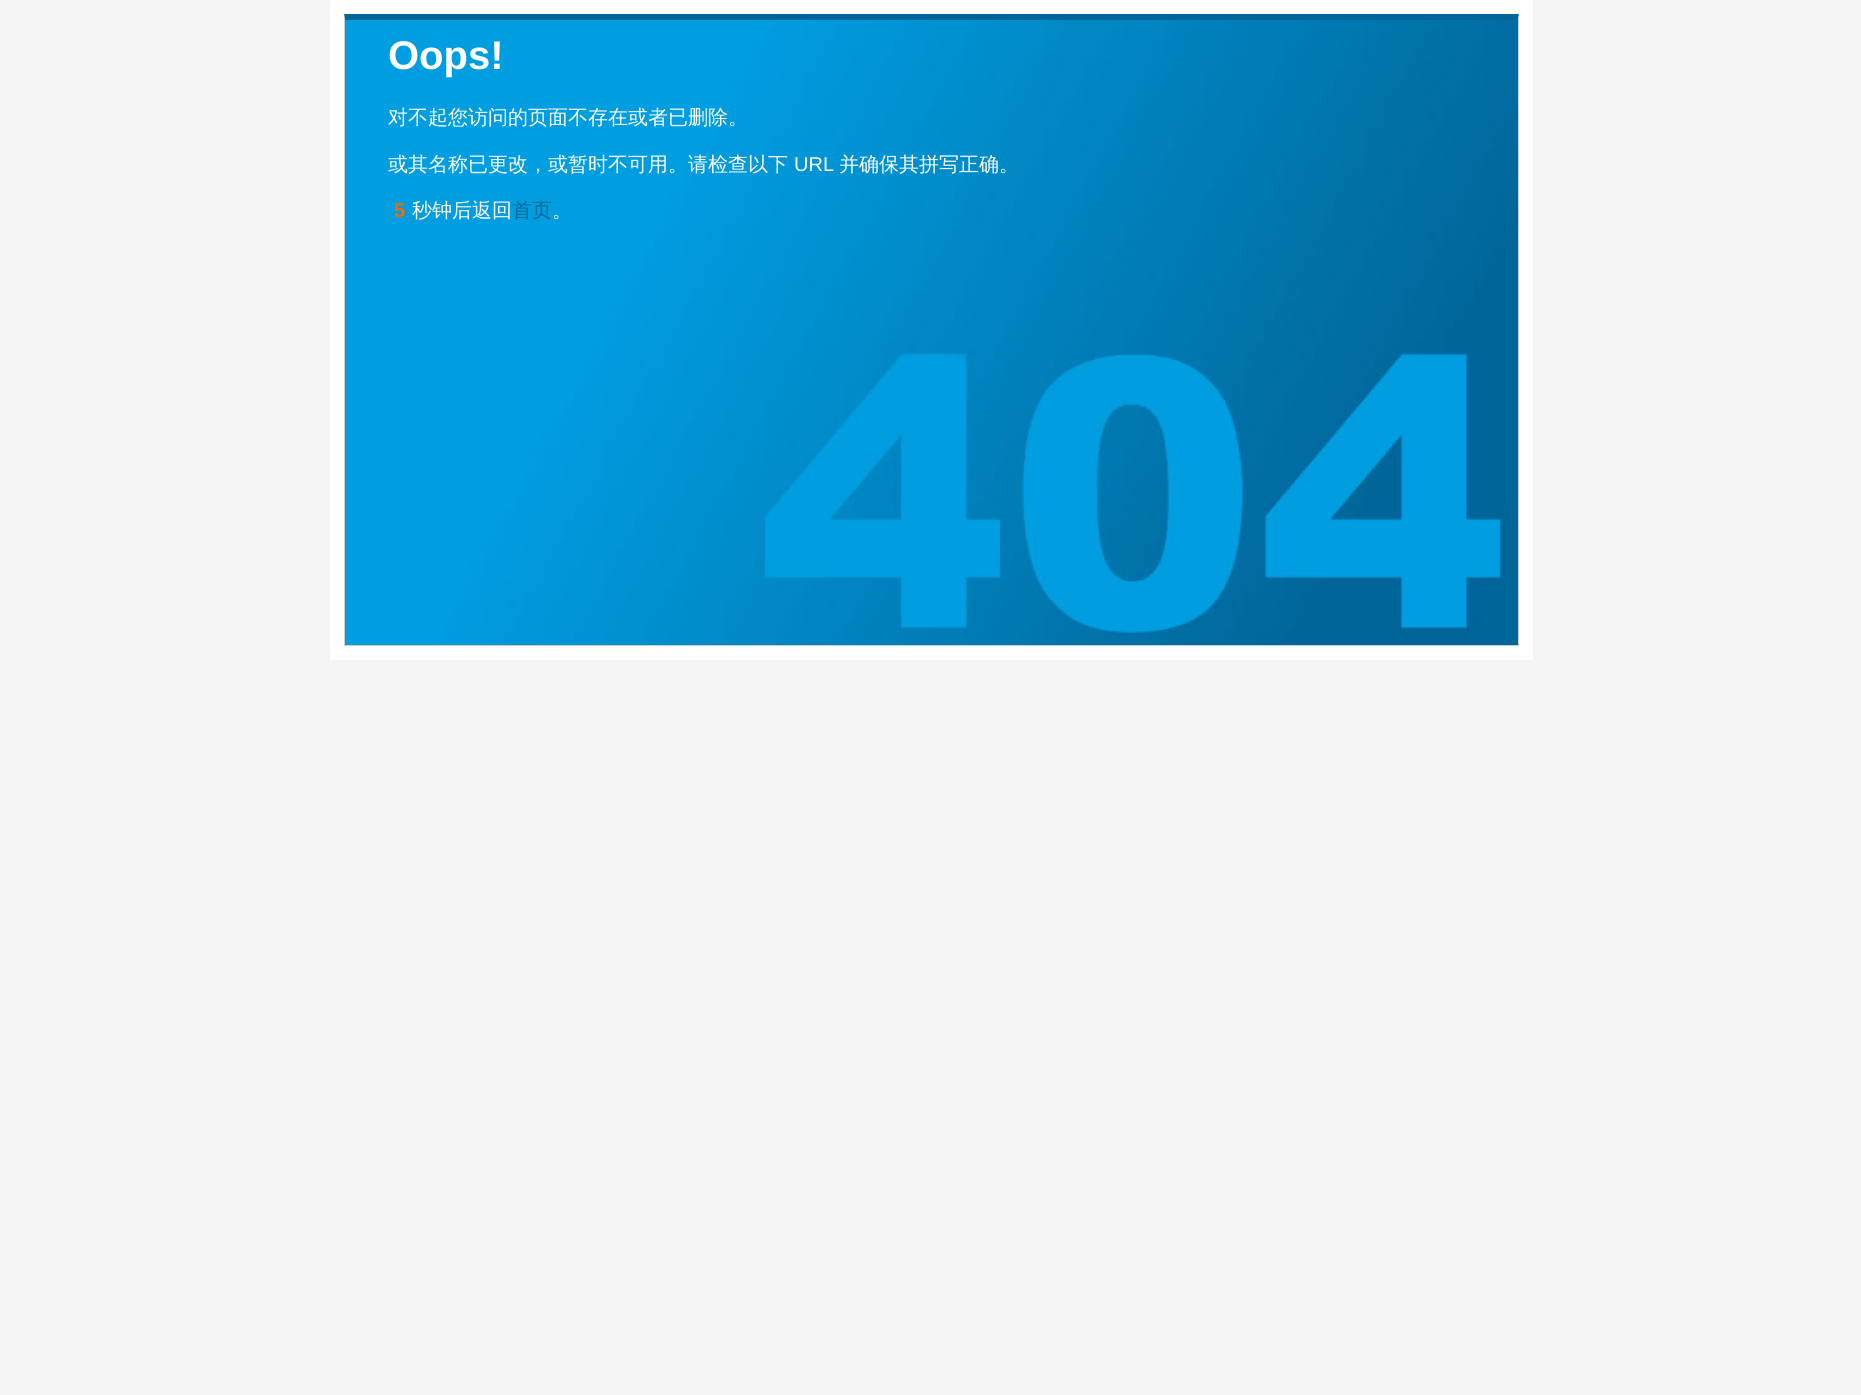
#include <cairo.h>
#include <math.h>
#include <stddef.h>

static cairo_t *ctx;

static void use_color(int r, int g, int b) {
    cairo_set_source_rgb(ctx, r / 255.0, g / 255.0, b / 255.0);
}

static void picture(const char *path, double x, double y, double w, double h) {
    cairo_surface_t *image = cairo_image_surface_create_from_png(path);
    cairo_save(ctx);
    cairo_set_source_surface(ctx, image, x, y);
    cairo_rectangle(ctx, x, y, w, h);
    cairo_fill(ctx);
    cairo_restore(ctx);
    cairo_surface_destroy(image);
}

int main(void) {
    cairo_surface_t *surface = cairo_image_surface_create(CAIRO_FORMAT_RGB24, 1861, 1395);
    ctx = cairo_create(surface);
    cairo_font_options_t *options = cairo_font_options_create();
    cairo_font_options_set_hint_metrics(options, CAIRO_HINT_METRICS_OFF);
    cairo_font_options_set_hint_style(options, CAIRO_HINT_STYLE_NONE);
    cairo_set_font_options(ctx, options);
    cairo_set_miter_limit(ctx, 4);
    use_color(245, 245, 245);
    cairo_paint(ctx);
    use_color(255, 255, 255);
    cairo_rectangle(ctx, 330, 0, 1203, 660);
    cairo_fill(ctx);
    picture("img1.png", 345, 20, 1173, 625);
    use_color(0, 102, 153);
    cairo_new_path(ctx);
    cairo_move_to(ctx, 344, 14);
    cairo_line_to(ctx, 1519, 14);
    cairo_line_to(ctx, 1518, 20);
    cairo_line_to(ctx, 345, 20);
    cairo_close_path(ctx);
    cairo_fill(ctx);
    use_color(204, 204, 204);
    cairo_new_path(ctx);
    cairo_move_to(ctx, 1519, 14);
    cairo_line_to(ctx, 1519, 646);
    cairo_line_to(ctx, 1518, 645);
    cairo_line_to(ctx, 1518, 20);
    cairo_close_path(ctx);
    cairo_fill(ctx);
    cairo_rectangle(ctx, 344, 645, 1175, 1);
    cairo_fill(ctx);
    cairo_new_path(ctx);
    cairo_move_to(ctx, 344, 646);
    cairo_line_to(ctx, 344, 14);
    cairo_line_to(ctx, 345, 20);
    cairo_line_to(ctx, 345, 645);
    cairo_close_path(ctx);
    cairo_fill(ctx);
    cairo_select_font_face(ctx, "Liberation Sans", CAIRO_FONT_SLANT_NORMAL, CAIRO_FONT_WEIGHT_BOLD);
    cairo_set_font_size(ctx, 40);
    use_color(255, 255, 255);
    cairo_move_to(ctx, 388, 69);
    cairo_show_text(ctx, "Oops!");
    cairo_select_font_face(ctx, "WenQuanYi Zen Hei Medium", CAIRO_FONT_SLANT_NORMAL, CAIRO_FONT_WEIGHT_NORMAL);
    cairo_set_font_size(ctx, 20);
    cairo_move_to(ctx, 388, 124);
    cairo_show_text(ctx, "对不起您访问的页面不存在或者已删除。");
    cairo_move_to(ctx, 388, 171);
    cairo_show_text(ctx, "或其名称已更改，或暂时不可用。请检查以下");
    cairo_select_font_face(ctx, "Liberation Sans", CAIRO_FONT_SLANT_NORMAL, CAIRO_FONT_WEIGHT_NORMAL);
    cairo_move_to(ctx, 794, 171);
    cairo_show_text(ctx, "URL");
    cairo_select_font_face(ctx, "WenQuanYi Zen Hei Medium", CAIRO_FONT_SLANT_NORMAL, CAIRO_FONT_WEIGHT_NORMAL);
    cairo_move_to(ctx, 839, 171);
    cairo_show_text(ctx, "并确保其拼写正确。");
    cairo_select_font_face(ctx, "Liberation Sans", CAIRO_FONT_SLANT_NORMAL, CAIRO_FONT_WEIGHT_BOLD);
    use_color(255, 102, 0);
    cairo_move_to(ctx, 394, 217);
    cairo_show_text(ctx, "5");
    cairo_select_font_face(ctx, "WenQuanYi Zen Hei Medium", CAIRO_FONT_SLANT_NORMAL, CAIRO_FONT_WEIGHT_NORMAL);
    use_color(255, 255, 255);
    cairo_move_to(ctx, 412, 217);
    cairo_show_text(ctx, "秒钟后返回");
    use_color(0, 102, 153);
    cairo_move_to(ctx, 512, 217);
    cairo_show_text(ctx, "首页");
    use_color(255, 255, 255);
    cairo_move_to(ctx, 552, 217);
    cairo_show_text(ctx, "。");
    cairo_surface_write_to_png(surface, "result.png");
    cairo_font_options_destroy(options);
    cairo_destroy(ctx);
    cairo_surface_destroy(surface);
    return 0;
}
